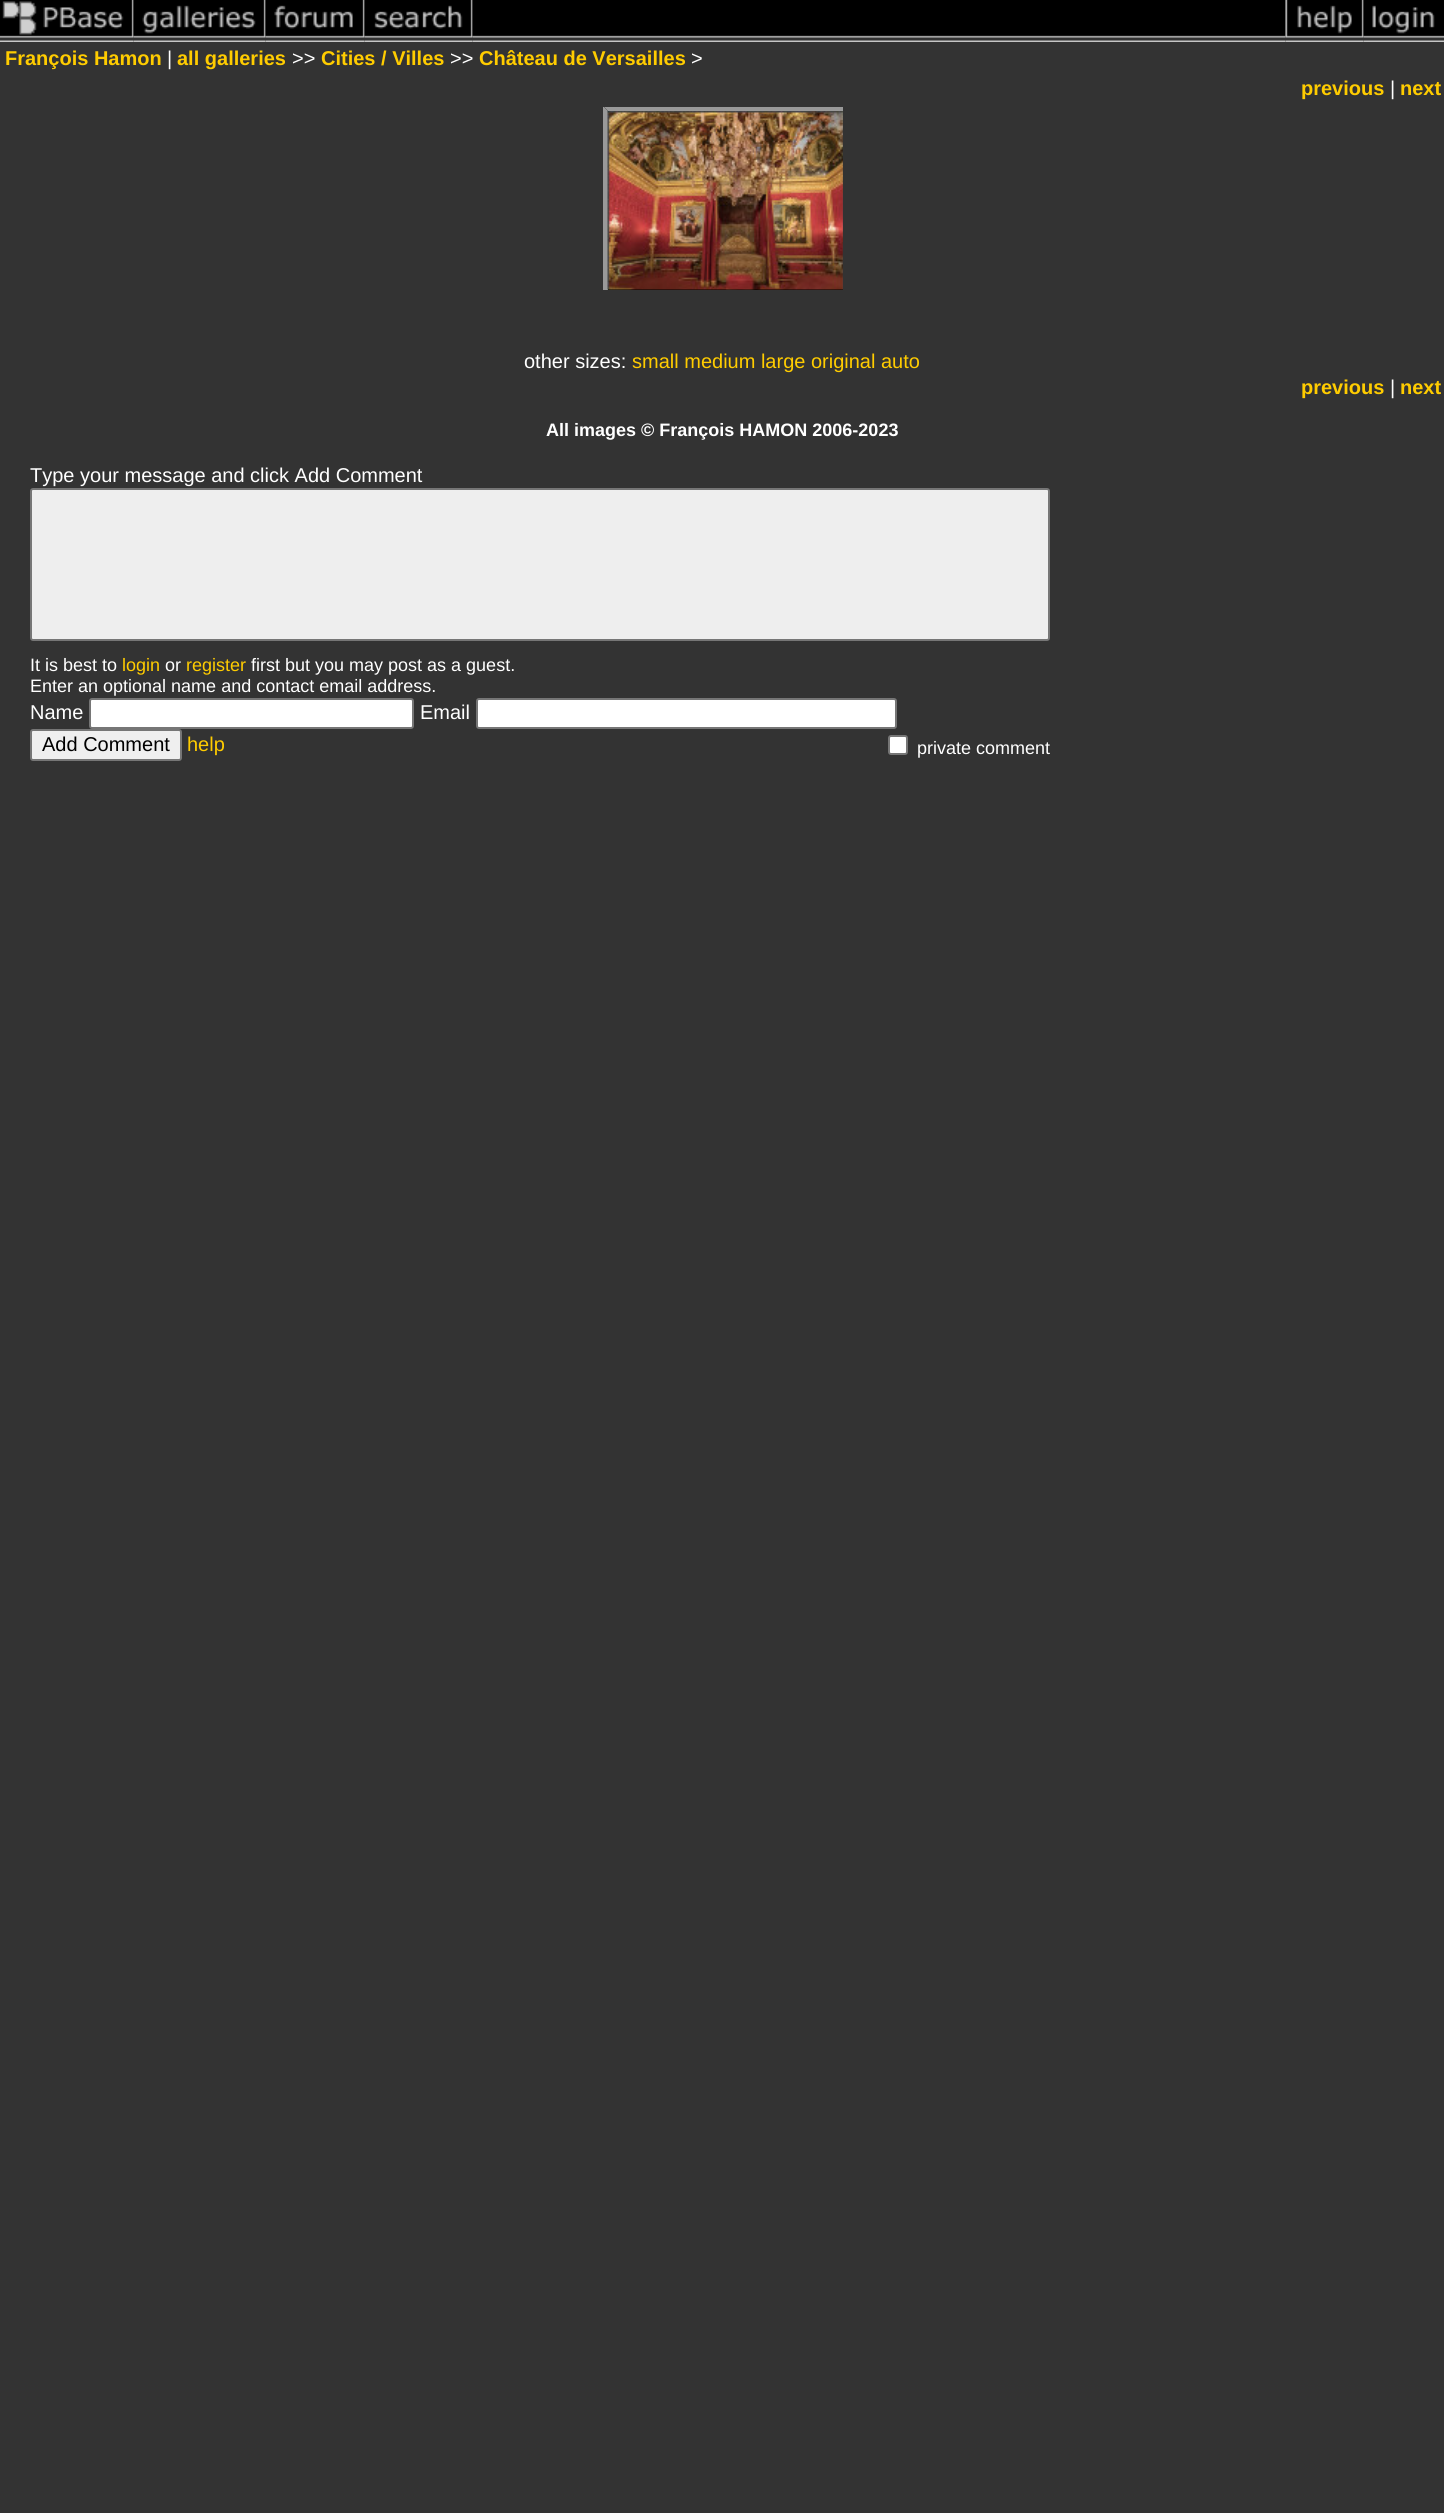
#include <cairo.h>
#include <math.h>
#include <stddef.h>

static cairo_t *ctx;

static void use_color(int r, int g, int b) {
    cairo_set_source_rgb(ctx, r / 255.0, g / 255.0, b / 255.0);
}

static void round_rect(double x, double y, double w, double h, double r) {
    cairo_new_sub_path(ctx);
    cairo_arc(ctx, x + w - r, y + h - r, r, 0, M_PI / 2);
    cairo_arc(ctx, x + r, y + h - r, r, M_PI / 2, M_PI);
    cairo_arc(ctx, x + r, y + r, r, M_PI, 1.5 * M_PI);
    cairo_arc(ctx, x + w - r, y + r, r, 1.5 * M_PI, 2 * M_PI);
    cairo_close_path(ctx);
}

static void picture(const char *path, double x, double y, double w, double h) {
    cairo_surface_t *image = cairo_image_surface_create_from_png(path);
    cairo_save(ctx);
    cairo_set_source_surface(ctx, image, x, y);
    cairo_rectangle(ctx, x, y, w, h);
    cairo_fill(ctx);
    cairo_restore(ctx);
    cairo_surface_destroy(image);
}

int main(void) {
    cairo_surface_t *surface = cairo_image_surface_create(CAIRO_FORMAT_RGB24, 1444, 2513);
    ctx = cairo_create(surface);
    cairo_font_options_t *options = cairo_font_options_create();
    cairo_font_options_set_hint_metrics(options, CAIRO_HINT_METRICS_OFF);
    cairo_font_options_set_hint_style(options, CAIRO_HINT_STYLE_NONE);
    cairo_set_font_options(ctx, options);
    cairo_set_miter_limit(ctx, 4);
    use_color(51, 51, 51);
    cairo_paint(ctx);
    picture("img1.png", 0, 0, 134, 42);
    picture("img2.png", 133, 0, 133, 42);
    picture("img3.png", 265, 0, 100, 42);
    picture("img4.png", 364, 0, 109, 42);
    picture("img5.png", 472, 0, 814, 42);
    picture("img6.png", 1285, 0, 79, 42);
    picture("img7.png", 1363, 0, 81, 42);
    cairo_select_font_face(ctx, "Liberation Sans", CAIRO_FONT_SLANT_NORMAL, CAIRO_FONT_WEIGHT_BOLD);
    cairo_set_font_size(ctx, 20);
    use_color(255, 204, 0);
    cairo_move_to(ctx, 5, 65);
    cairo_show_text(ctx, "François Hamon");
    cairo_select_font_face(ctx, "Liberation Sans", CAIRO_FONT_SLANT_NORMAL, CAIRO_FONT_WEIGHT_NORMAL);
    use_color(255, 255, 255);
    cairo_move_to(ctx, 167, 65);
    cairo_show_text(ctx, "|");
    cairo_select_font_face(ctx, "Liberation Sans", CAIRO_FONT_SLANT_NORMAL, CAIRO_FONT_WEIGHT_BOLD);
    use_color(255, 204, 0);
    cairo_move_to(ctx, 177, 65);
    cairo_show_text(ctx, "all galleries");
    cairo_select_font_face(ctx, "Liberation Sans", CAIRO_FONT_SLANT_NORMAL, CAIRO_FONT_WEIGHT_NORMAL);
    use_color(255, 255, 255);
    cairo_move_to(ctx, 292, 65);
    cairo_show_text(ctx, ">>");
    cairo_select_font_face(ctx, "Liberation Sans", CAIRO_FONT_SLANT_NORMAL, CAIRO_FONT_WEIGHT_BOLD);
    use_color(255, 204, 0);
    cairo_move_to(ctx, 321, 65);
    cairo_show_text(ctx, "Cities / Villes");
    cairo_select_font_face(ctx, "Liberation Sans", CAIRO_FONT_SLANT_NORMAL, CAIRO_FONT_WEIGHT_NORMAL);
    use_color(255, 255, 255);
    cairo_move_to(ctx, 450, 65);
    cairo_show_text(ctx, ">>");
    cairo_select_font_face(ctx, "Liberation Sans", CAIRO_FONT_SLANT_NORMAL, CAIRO_FONT_WEIGHT_BOLD);
    use_color(255, 204, 0);
    cairo_move_to(ctx, 479, 65);
    cairo_show_text(ctx, "Château de Versailles");
    cairo_select_font_face(ctx, "Liberation Sans", CAIRO_FONT_SLANT_NORMAL, CAIRO_FONT_WEIGHT_NORMAL);
    use_color(255, 255, 255);
    cairo_move_to(ctx, 691, 65);
    cairo_show_text(ctx, ">");
    cairo_select_font_face(ctx, "Liberation Sans", CAIRO_FONT_SLANT_NORMAL, CAIRO_FONT_WEIGHT_BOLD);
    use_color(255, 204, 0);
    cairo_move_to(ctx, 1301, 95);
    cairo_show_text(ctx, "previous");
    cairo_select_font_face(ctx, "Liberation Sans", CAIRO_FONT_SLANT_NORMAL, CAIRO_FONT_WEIGHT_NORMAL);
    use_color(255, 255, 255);
    cairo_move_to(ctx, 1390, 95);
    cairo_show_text(ctx, "|");
    cairo_select_font_face(ctx, "Liberation Sans", CAIRO_FONT_SLANT_NORMAL, CAIRO_FONT_WEIGHT_BOLD);
    use_color(255, 204, 0);
    cairo_move_to(ctx, 1400, 95);
    cairo_show_text(ctx, "next");
    use_color(0, 0, 0);
    cairo_rectangle(ctx, 604, 107, 239, 183);
    cairo_fill(ctx);
    cairo_save(ctx);
    cairo_rectangle(ctx, 603, 107, 240, 183);
    cairo_clip(ctx);
    use_color(153, 153, 153);
    cairo_new_path(ctx);
    cairo_move_to(ctx, 603, 106);
    cairo_line_to(ctx, 849, 106);
    cairo_line_to(ctx, 844, 111);
    cairo_line_to(ctx, 608, 111);
    cairo_close_path(ctx);
    cairo_fill(ctx);
    cairo_new_path(ctx);
    cairo_move_to(ctx, 603, 297);
    cairo_line_to(ctx, 603, 106);
    cairo_line_to(ctx, 608, 111);
    cairo_line_to(ctx, 608, 292);
    cairo_close_path(ctx);
    cairo_fill(ctx);
    cairo_restore(ctx);
    picture("img8.png", 607, 111, 236, 179);
    cairo_select_font_face(ctx, "Liberation Sans", CAIRO_FONT_SLANT_NORMAL, CAIRO_FONT_WEIGHT_NORMAL);
    use_color(255, 255, 255);
    cairo_move_to(ctx, 524, 368);
    cairo_show_text(ctx, "other sizes:");
    use_color(255, 204, 0);
    cairo_move_to(ctx, 632, 368);
    cairo_show_text(ctx, "small medium large original auto");
    cairo_select_font_face(ctx, "Liberation Sans", CAIRO_FONT_SLANT_NORMAL, CAIRO_FONT_WEIGHT_BOLD);
    cairo_move_to(ctx, 1301, 394);
    cairo_show_text(ctx, "previous");
    cairo_select_font_face(ctx, "Liberation Sans", CAIRO_FONT_SLANT_NORMAL, CAIRO_FONT_WEIGHT_NORMAL);
    use_color(255, 255, 255);
    cairo_move_to(ctx, 1390, 394);
    cairo_show_text(ctx, "|");
    cairo_select_font_face(ctx, "Liberation Sans", CAIRO_FONT_SLANT_NORMAL, CAIRO_FONT_WEIGHT_BOLD);
    use_color(255, 204, 0);
    cairo_move_to(ctx, 1400, 394);
    cairo_show_text(ctx, "next");
    cairo_set_font_size(ctx, 18);
    use_color(255, 255, 255);
    cairo_move_to(ctx, 546, 436);
    cairo_show_text(ctx, "All images © François HAMON 2006-2023");
    cairo_select_font_face(ctx, "Liberation Sans", CAIRO_FONT_SLANT_NORMAL, CAIRO_FONT_WEIGHT_NORMAL);
    cairo_set_font_size(ctx, 20);
    cairo_move_to(ctx, 30, 482);
    cairo_show_text(ctx, "Type your message and click Add Comment");
    use_color(238, 238, 238);
    round_rect(31, 489, 1018, 151, 2);
    cairo_fill_preserve(ctx);
    use_color(118, 118, 118);
    cairo_stroke(ctx);
    cairo_set_font_size(ctx, 18);
    use_color(255, 255, 255);
    cairo_move_to(ctx, 30, 671);
    cairo_show_text(ctx, "It is best to");
    use_color(255, 204, 0);
    cairo_move_to(ctx, 122, 671);
    cairo_show_text(ctx, "login");
    use_color(255, 255, 255);
    cairo_move_to(ctx, 165, 671);
    cairo_show_text(ctx, "or");
    use_color(255, 204, 0);
    cairo_move_to(ctx, 186, 671);
    cairo_show_text(ctx, "register");
    use_color(255, 255, 255);
    cairo_move_to(ctx, 251, 671);
    cairo_show_text(ctx, "first but you may post as a guest.");
    cairo_move_to(ctx, 30, 692);
    cairo_show_text(ctx, "Enter an optional name and contact email address.");
    cairo_set_font_size(ctx, 20);
    cairo_move_to(ctx, 30, 719);
    cairo_show_text(ctx, "Name");
    round_rect(90, 699, 323, 29, 2);
    cairo_fill_preserve(ctx);
    use_color(118, 118, 118);
    cairo_stroke(ctx);
    use_color(255, 255, 255);
    cairo_move_to(ctx, 420, 719);
    cairo_show_text(ctx, "Email");
    round_rect(477, 699, 419, 29, 2);
    cairo_fill_preserve(ctx);
    use_color(118, 118, 118);
    cairo_stroke(ctx);
    use_color(239, 239, 239);
    round_rect(31, 730, 150, 30, 2);
    cairo_fill_preserve(ctx);
    use_color(118, 118, 118);
    cairo_stroke(ctx);
    use_color(0, 0, 0);
    cairo_move_to(ctx, 42, 751);
    cairo_show_text(ctx, "Add Comment");
    use_color(255, 204, 0);
    cairo_move_to(ctx, 187, 751);
    cairo_show_text(ctx, "help");
    use_color(255, 255, 255);
    round_rect(889, 736, 18, 18, 2);
    cairo_fill_preserve(ctx);
    use_color(118, 118, 118);
    cairo_stroke(ctx);
    cairo_set_font_size(ctx, 18);
    use_color(255, 255, 255);
    cairo_move_to(ctx, 917, 754);
    cairo_show_text(ctx, "private comment");
    cairo_surface_write_to_png(surface, "result.png");
    cairo_font_options_destroy(options);
    cairo_destroy(ctx);
    cairo_surface_destroy(surface);
    return 0;
}
